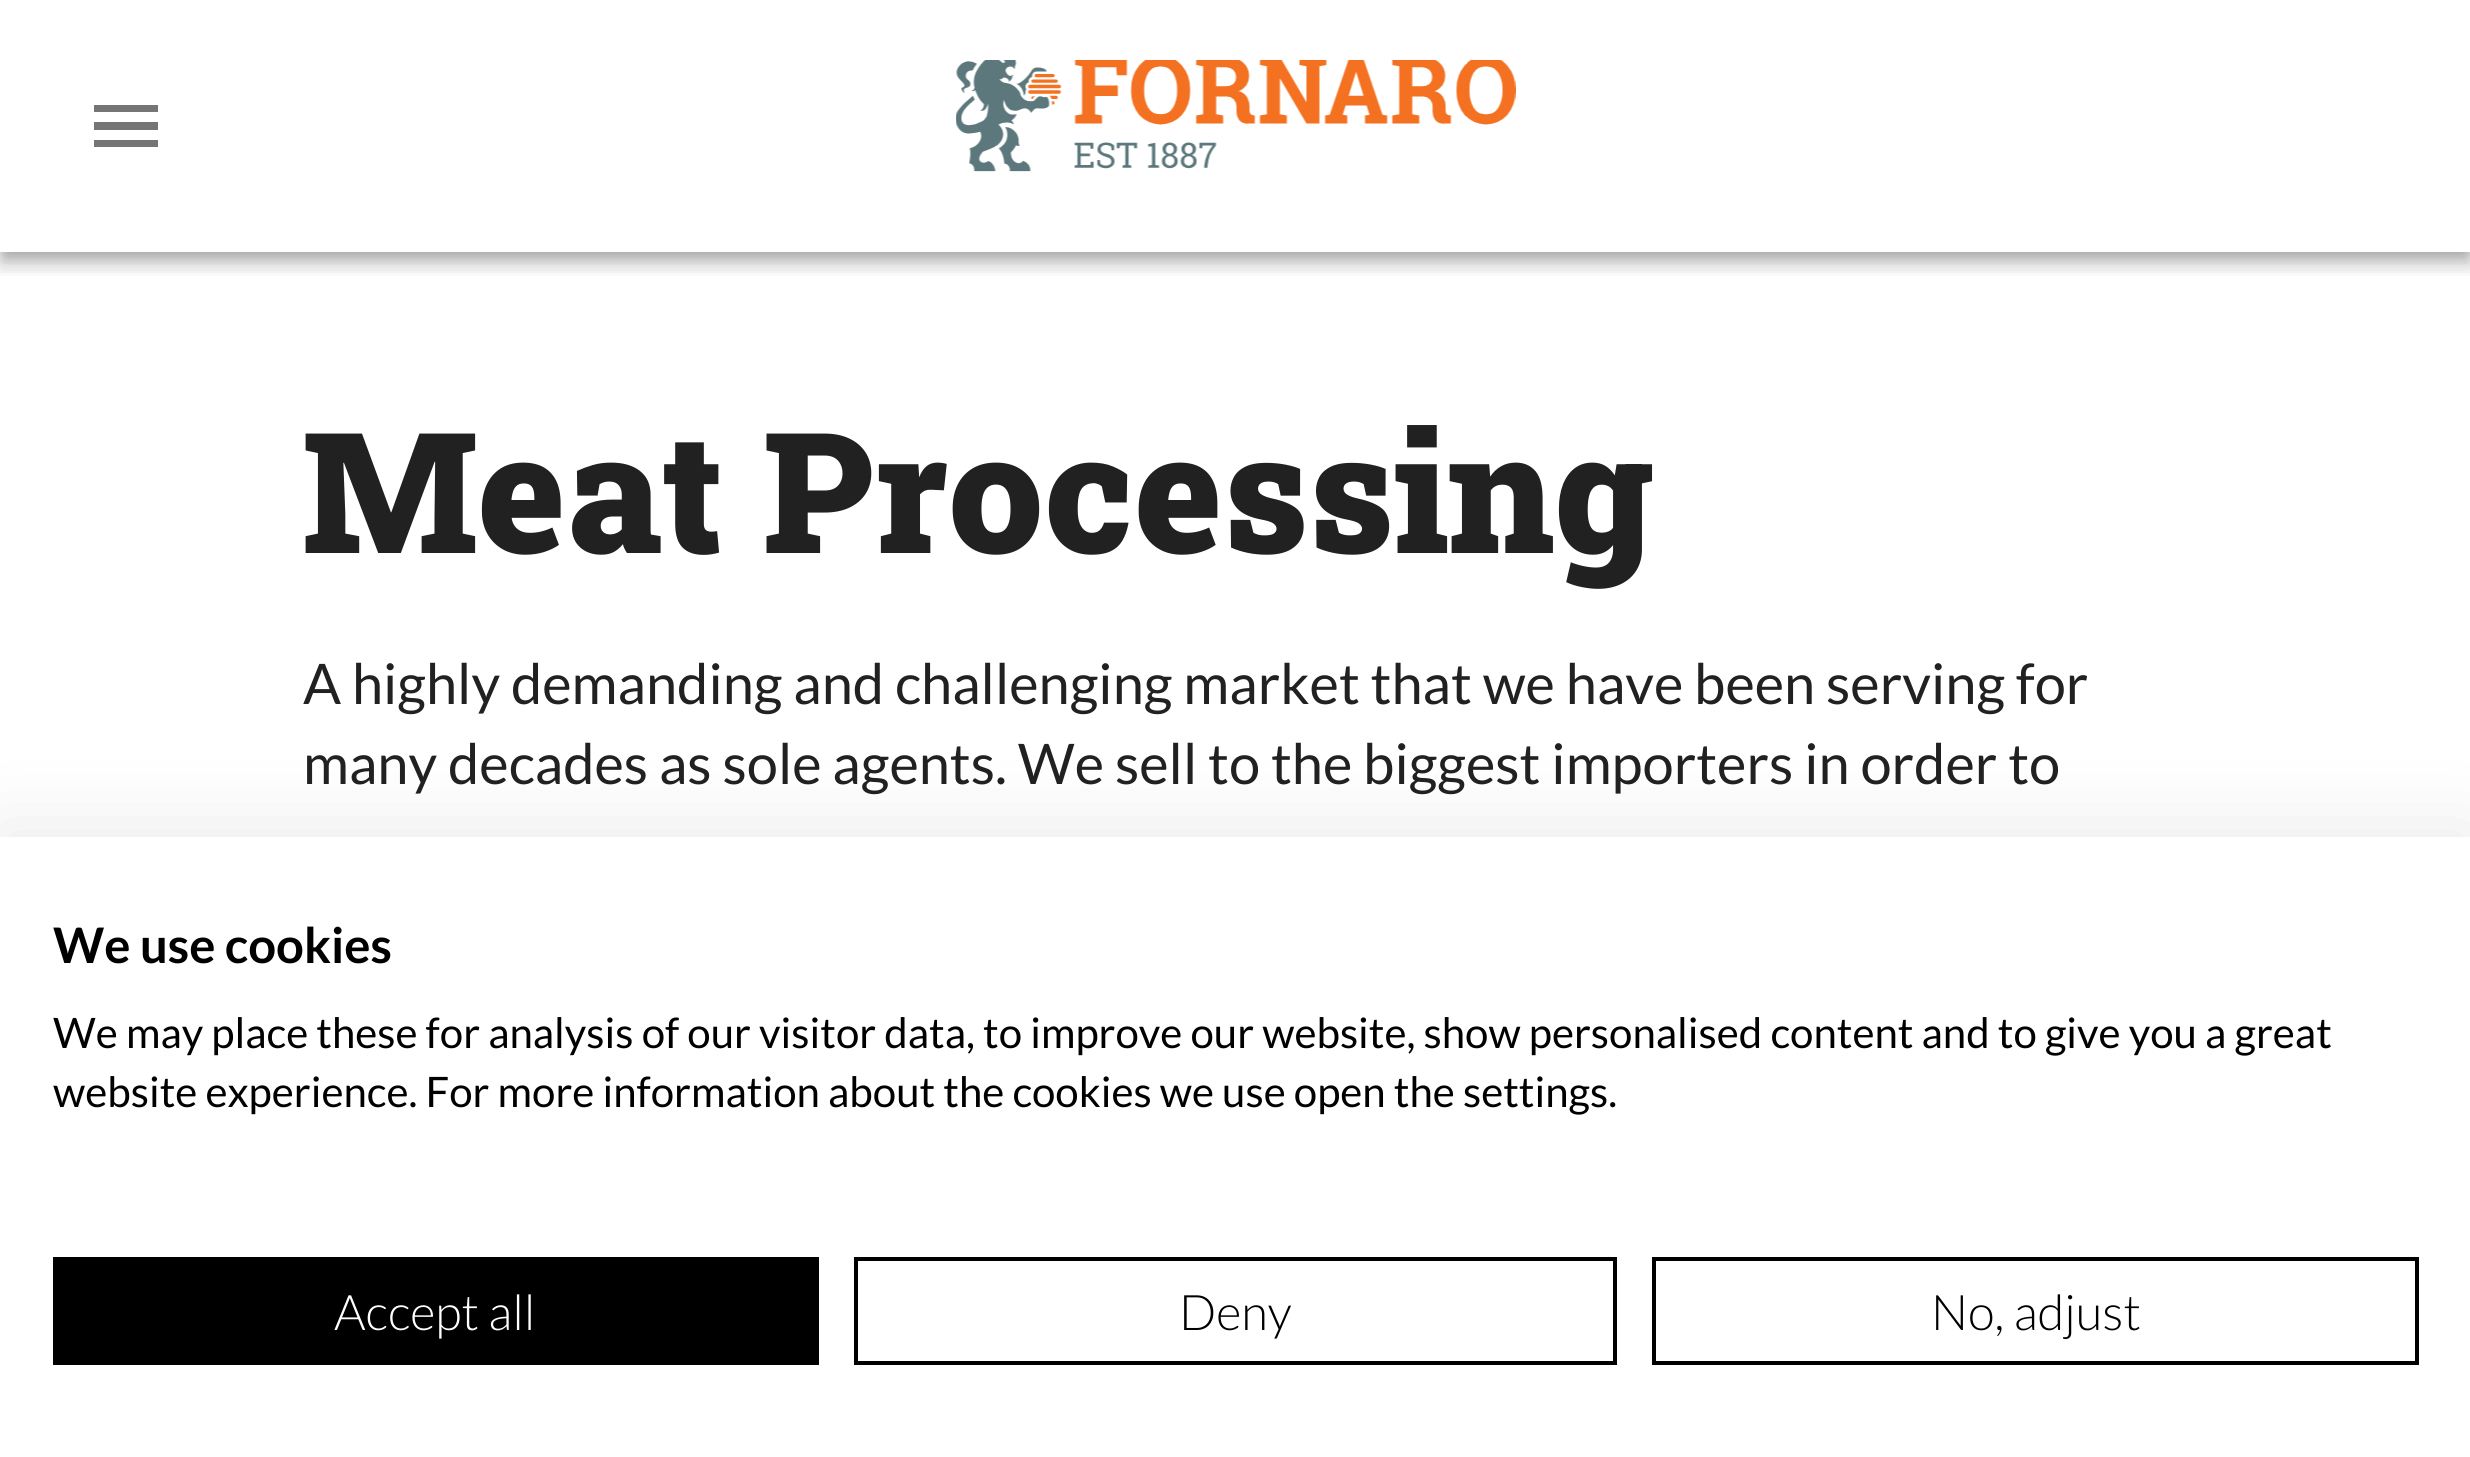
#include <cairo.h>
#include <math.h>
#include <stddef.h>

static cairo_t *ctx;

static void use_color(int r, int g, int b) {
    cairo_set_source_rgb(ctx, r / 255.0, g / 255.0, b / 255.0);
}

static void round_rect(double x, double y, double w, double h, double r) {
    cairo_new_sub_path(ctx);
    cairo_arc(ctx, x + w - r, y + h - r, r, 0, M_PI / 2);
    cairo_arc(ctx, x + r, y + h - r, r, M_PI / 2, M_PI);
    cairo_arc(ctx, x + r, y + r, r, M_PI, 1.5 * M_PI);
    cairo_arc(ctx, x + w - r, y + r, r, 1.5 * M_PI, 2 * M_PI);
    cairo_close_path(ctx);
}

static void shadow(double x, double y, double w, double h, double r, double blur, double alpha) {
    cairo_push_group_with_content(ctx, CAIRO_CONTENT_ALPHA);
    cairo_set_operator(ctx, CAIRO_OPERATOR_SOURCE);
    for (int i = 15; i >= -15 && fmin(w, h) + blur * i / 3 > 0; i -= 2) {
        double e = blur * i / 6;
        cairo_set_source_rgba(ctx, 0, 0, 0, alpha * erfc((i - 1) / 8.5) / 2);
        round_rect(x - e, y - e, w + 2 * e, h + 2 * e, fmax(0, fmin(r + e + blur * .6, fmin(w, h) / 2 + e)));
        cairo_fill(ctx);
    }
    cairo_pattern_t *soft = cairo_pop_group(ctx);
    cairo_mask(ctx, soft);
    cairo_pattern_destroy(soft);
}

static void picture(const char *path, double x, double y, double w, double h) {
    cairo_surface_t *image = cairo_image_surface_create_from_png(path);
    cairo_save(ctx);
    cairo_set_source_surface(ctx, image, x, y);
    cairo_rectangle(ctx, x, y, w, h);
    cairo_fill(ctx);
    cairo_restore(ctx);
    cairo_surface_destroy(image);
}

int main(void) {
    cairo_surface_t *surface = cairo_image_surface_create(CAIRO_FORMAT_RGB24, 2470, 1457);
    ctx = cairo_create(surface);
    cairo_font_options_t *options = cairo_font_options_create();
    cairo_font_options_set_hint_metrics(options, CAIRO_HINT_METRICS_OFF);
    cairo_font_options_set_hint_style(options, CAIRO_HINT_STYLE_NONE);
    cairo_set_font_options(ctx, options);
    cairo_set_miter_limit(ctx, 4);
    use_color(255, 255, 255);
    cairo_paint(ctx);
    cairo_save(ctx);
    cairo_rectangle(ctx, 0, 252, 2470, 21);
    cairo_clip(ctx);
    use_color(0, 0, 0);
    shadow(0, 4, 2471, 252, 0, 17.5, 0.12);
    cairo_restore(ctx);
    cairo_save(ctx);
    cairo_rectangle(ctx, 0, 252, 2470, 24);
    cairo_clip(ctx);
    use_color(0, 0, 0);
    shadow(0, 14, 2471, 252, 0, 9, 0.14);
    cairo_restore(ctx);
    cairo_save(ctx);
    cairo_rectangle(ctx, 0, 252, 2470, 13);
    cairo_clip(ctx);
    use_color(0, 0, 0);
    shadow(4, 11, 2464, 245, 0, 7, 0.2);
    cairo_restore(ctx);
    use_color(117, 117, 117);
    cairo_new_path(ctx);
    cairo_move_to(ctx, 94, 147);
    cairo_line_to(ctx, 158, 147);
    cairo_line_to(ctx, 158, 140);
    cairo_line_to(ctx, 94, 140);
    cairo_close_path(ctx);
    cairo_move_to(ctx, 94, 130);
    cairo_line_to(ctx, 158, 130);
    cairo_line_to(ctx, 158, 122);
    cairo_line_to(ctx, 94, 122);
    cairo_close_path(ctx);
    cairo_move_to(ctx, 94, 105);
    cairo_line_to(ctx, 94, 112);
    cairo_line_to(ctx, 158, 112);
    cairo_line_to(ctx, 158, 105);
    cairo_close_path(ctx);
    cairo_fill(ctx);
    picture("img1.png", 956, 60, 560, 112);
    cairo_select_font_face(ctx, "Roboto Slab Black", CAIRO_FONT_SLANT_NORMAL, CAIRO_FONT_WEIGHT_NORMAL);
    cairo_set_font_size(ctx, 168);
    use_color(33, 33, 33);
    cairo_move_to(ctx, 303, 553);
    cairo_show_text(ctx, "Meat Processing");
    cairo_select_font_face(ctx, "Lato", CAIRO_FONT_SLANT_NORMAL, CAIRO_FONT_WEIGHT_NORMAL);
    cairo_set_font_size(ctx, 56);
    cairo_move_to(ctx, 303, 704);
    cairo_show_text(ctx, "A highly demanding and challenging market that we have been serving for");
    cairo_move_to(ctx, 303, 784);
    cairo_show_text(ctx, "many decades as sole agents. We sell to the biggest importers in order to");
    use_color(0, 0, 0);
    shadow(0, 837, 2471, 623, 0, 42, 0.1);
    use_color(255, 255, 255);
    cairo_rectangle(ctx, 0, 837, 2470, 620);
    cairo_fill(ctx);
    cairo_select_font_face(ctx, "Lato", CAIRO_FONT_SLANT_NORMAL, CAIRO_FONT_WEIGHT_BOLD);
    cairo_set_font_size(ctx, 49);
    use_color(0, 0, 0);
    cairo_move_to(ctx, 53, 963);
    cairo_show_text(ctx, "We use cookies");
    cairo_select_font_face(ctx, "Lato", CAIRO_FONT_SLANT_NORMAL, CAIRO_FONT_WEIGHT_NORMAL);
    cairo_set_font_size(ctx, 42);
    cairo_move_to(ctx, 53, 1048);
    cairo_show_text(ctx, "We may place these for analysis of our visitor data, to improve our website, show personalised content and to give you a great");
    cairo_move_to(ctx, 53, 1107);
    cairo_show_text(ctx, "website experience. For more information about the cookies we use open the settings.");
    cairo_rectangle(ctx, 53, 1257, 766, 108);
    cairo_fill(ctx);
    cairo_select_font_face(ctx, "Lato Light", CAIRO_FONT_SLANT_NORMAL, CAIRO_FONT_WEIGHT_NORMAL);
    cairo_set_font_size(ctx, 49);
    use_color(255, 255, 255);
    cairo_move_to(ctx, 334, 1330);
    cairo_show_text(ctx, "Accept all");
    cairo_rectangle(ctx, 856, 1259, 759, 104);
    use_color(0, 0, 0);
    cairo_set_line_width(ctx, 4);
    cairo_stroke(ctx);
    cairo_move_to(ctx, 1179, 1330);
    cairo_show_text(ctx, "Deny");
    cairo_rectangle(ctx, 1654, 1259, 763, 104);
    cairo_stroke(ctx);
    cairo_move_to(ctx, 1931, 1330);
    cairo_show_text(ctx, "No, adjust");
    cairo_surface_write_to_png(surface, "result.png");
    cairo_font_options_destroy(options);
    cairo_destroy(ctx);
    cairo_surface_destroy(surface);
    return 0;
}
